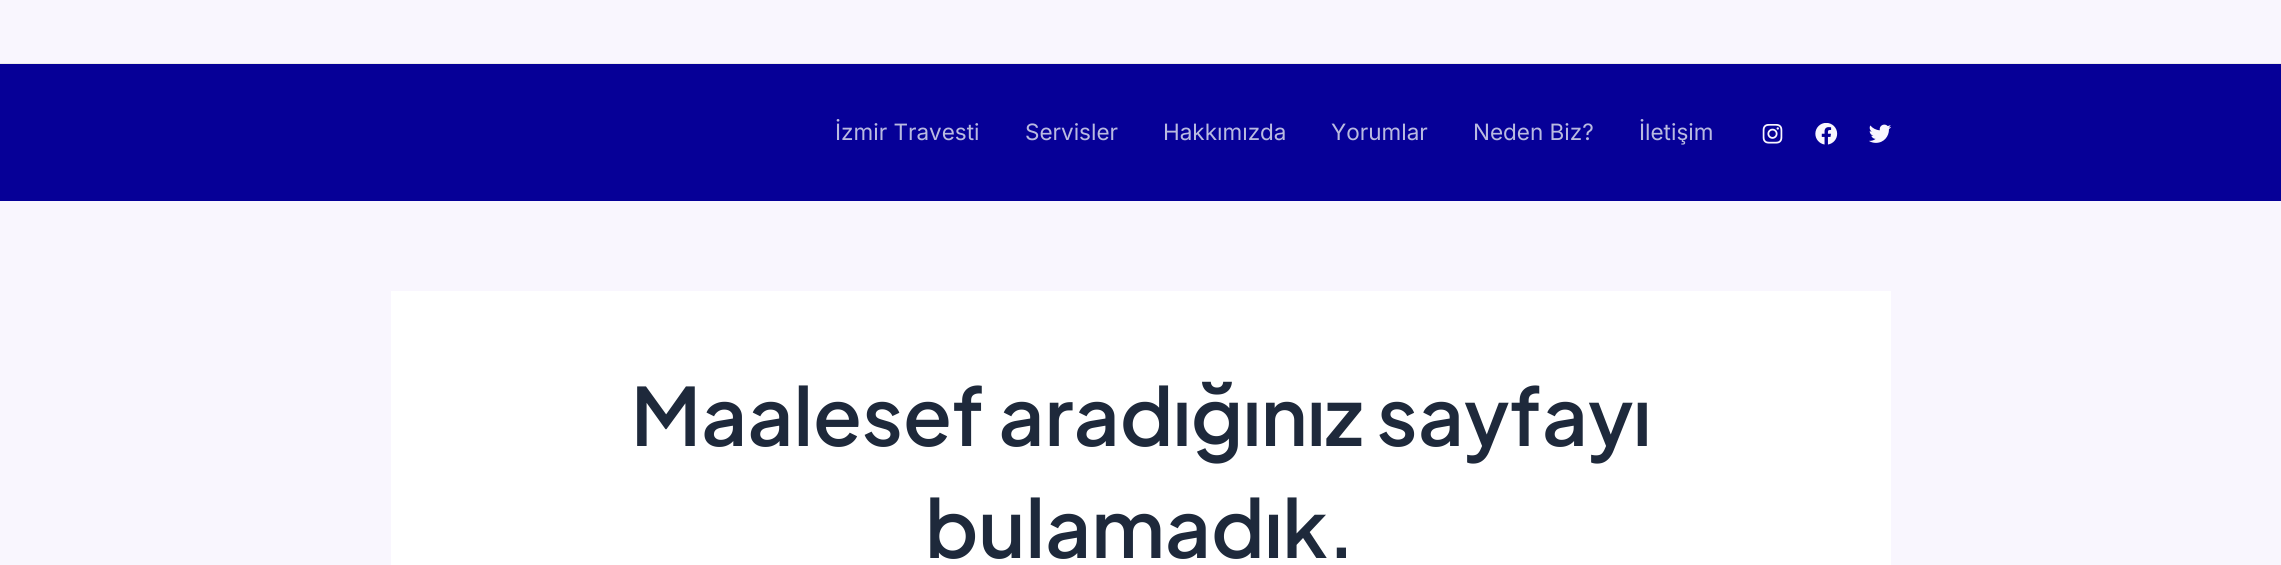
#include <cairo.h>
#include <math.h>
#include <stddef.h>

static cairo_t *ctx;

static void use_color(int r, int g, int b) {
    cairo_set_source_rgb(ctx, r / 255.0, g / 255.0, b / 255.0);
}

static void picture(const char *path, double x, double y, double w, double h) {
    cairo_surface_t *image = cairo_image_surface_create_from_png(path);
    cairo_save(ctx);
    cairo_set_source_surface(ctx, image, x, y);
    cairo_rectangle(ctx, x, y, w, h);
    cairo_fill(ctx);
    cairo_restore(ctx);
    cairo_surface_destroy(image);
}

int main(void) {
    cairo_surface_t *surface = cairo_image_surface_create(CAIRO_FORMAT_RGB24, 2281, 565);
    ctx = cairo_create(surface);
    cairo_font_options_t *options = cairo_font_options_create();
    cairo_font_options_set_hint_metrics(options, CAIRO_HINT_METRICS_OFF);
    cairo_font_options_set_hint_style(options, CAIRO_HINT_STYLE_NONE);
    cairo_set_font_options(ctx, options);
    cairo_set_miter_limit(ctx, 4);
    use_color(249, 246, 254);
    cairo_paint(ctx);
    use_color(234, 234, 234);
    cairo_rectangle(ctx, 0, 63, 2281, 1);
    cairo_fill(ctx);
    use_color(6, 0, 151);
    cairo_rectangle(ctx, 0, 64, 2281, 137);
    cairo_fill(ctx);
    cairo_select_font_face(ctx, "Inter", CAIRO_FONT_SLANT_NORMAL, CAIRO_FONT_WEIGHT_NORMAL);
    cairo_set_font_size(ctx, 22.5);
    use_color(185, 186, 224);
    cairo_move_to(ctx, 835, 140);
    cairo_show_text(ctx, "İzmir Travesti");
    cairo_move_to(ctx, 1025, 140);
    cairo_show_text(ctx, "Servisler");
    cairo_move_to(ctx, 1163, 140);
    cairo_show_text(ctx, "Hakkımızda");
    cairo_move_to(ctx, 1331, 140);
    cairo_show_text(ctx, "Yorumlar");
    cairo_move_to(ctx, 1473, 140);
    cairo_show_text(ctx, "Neden Biz?");
    cairo_move_to(ctx, 1639, 140);
    cairo_show_text(ctx, "İletişim");
    picture("img1.png", 1762, 124, 21, 20);
    picture("img2.png", 1815, 123, 23, 22);
    picture("img3.png", 1869, 124, 22, 19);
    use_color(255, 255, 255);
    cairo_rectangle(ctx, 391, 291, 1500, 274);
    cairo_fill(ctx);
    cairo_select_font_face(ctx, "Plus Jakarta Sans SemiBold", CAIRO_FONT_SLANT_NORMAL, CAIRO_FONT_WEIGHT_NORMAL);
    cairo_set_font_size(ctx, 80);
    use_color(30, 41, 59);
    cairo_move_to(ctx, 631, 446);
    cairo_show_text(ctx, "Maalesef aradığınız sayfayı");
    cairo_move_to(ctx, 925, 558);
    cairo_show_text(ctx, "bulamadık.");
    cairo_surface_write_to_png(surface, "result.png");
    cairo_font_options_destroy(options);
    cairo_destroy(ctx);
    cairo_surface_destroy(surface);
    return 0;
}
